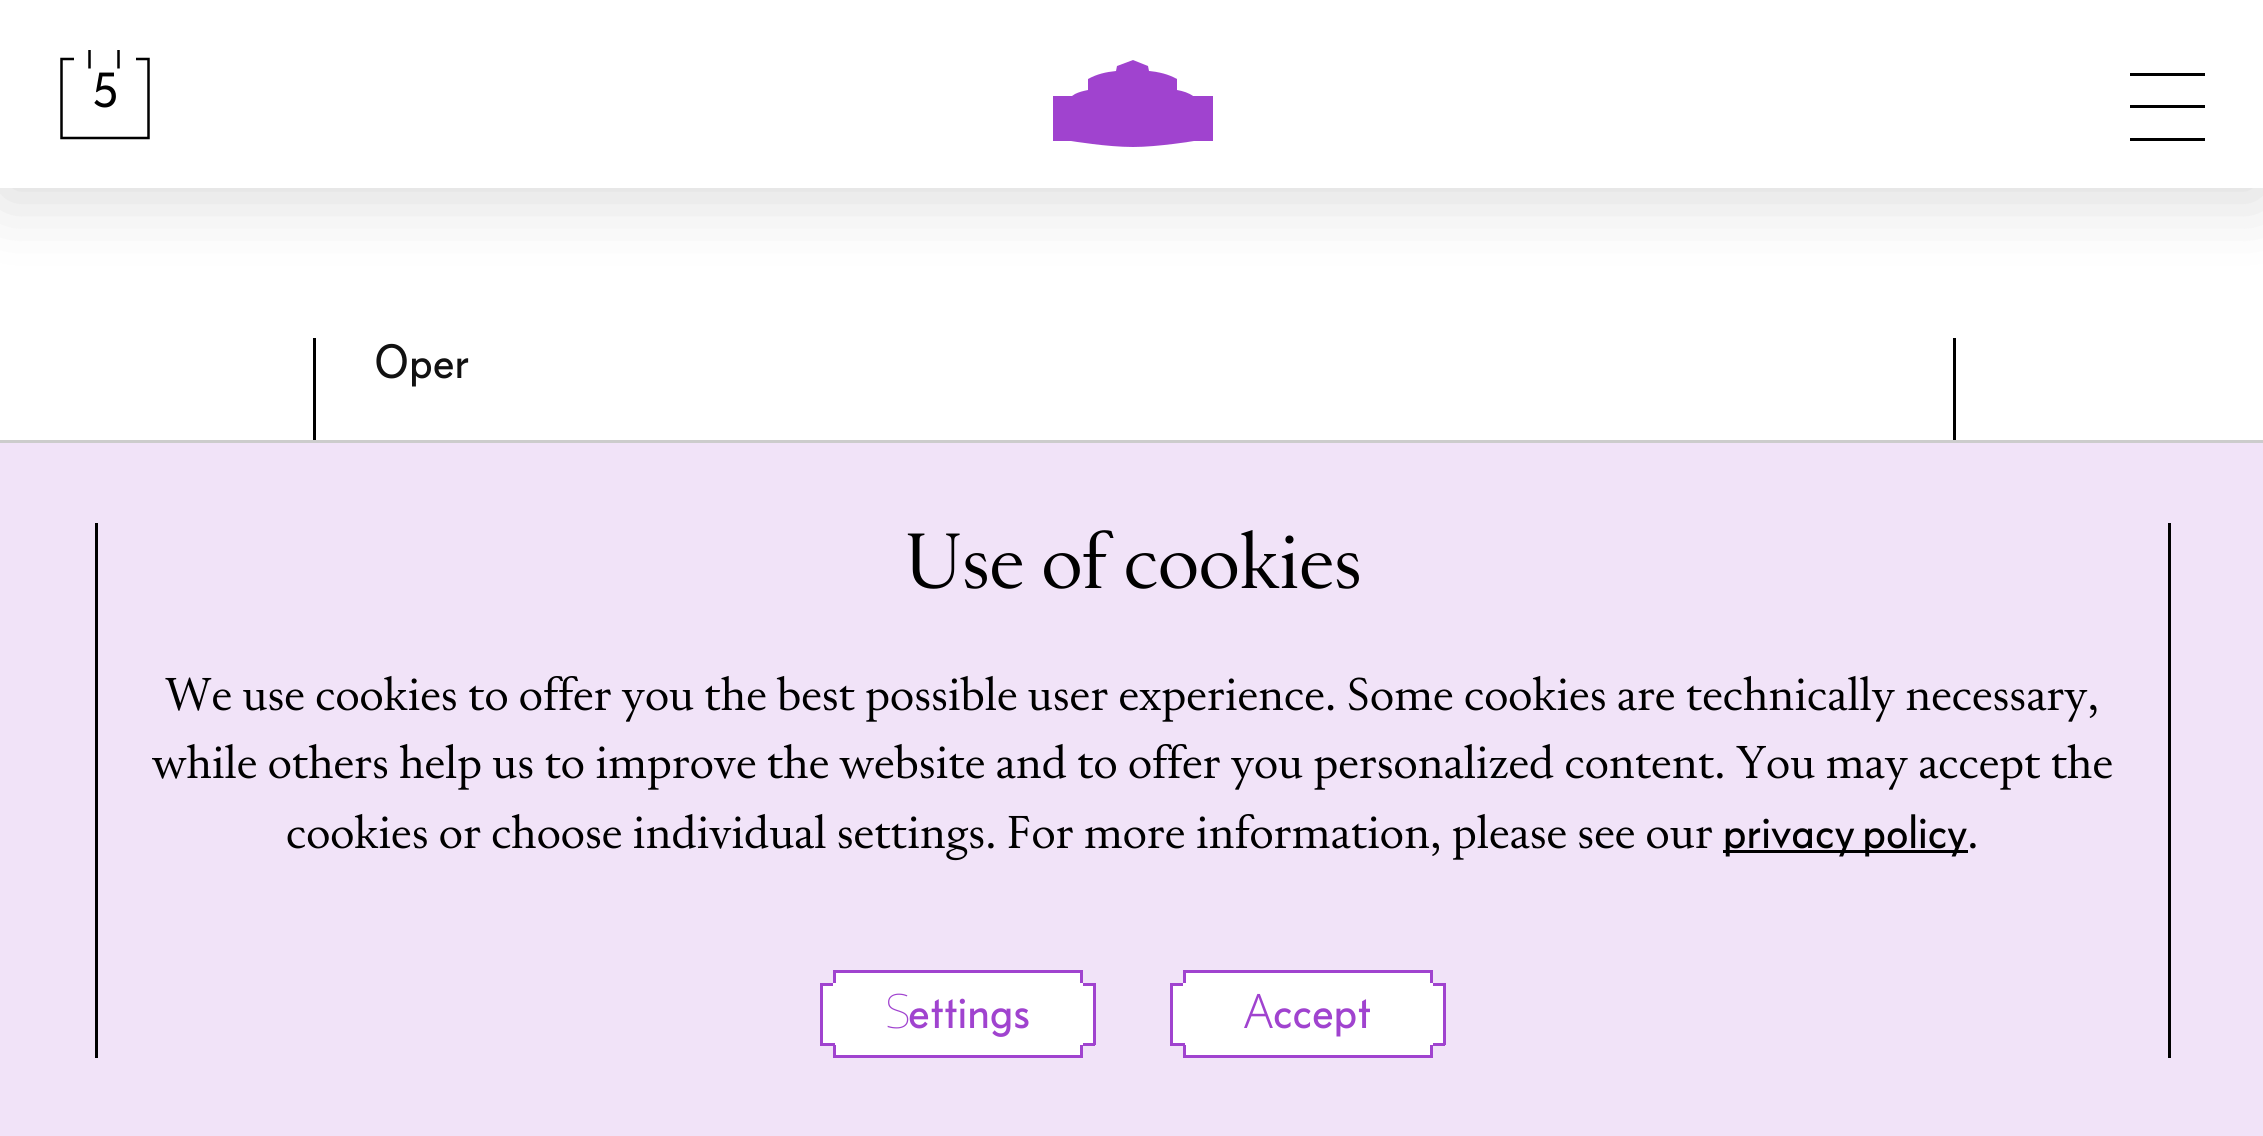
#include <cairo.h>
#include <math.h>
#include <stddef.h>

static cairo_t *ctx;

static void use_color(int r, int g, int b) {
    cairo_set_source_rgb(ctx, r / 255.0, g / 255.0, b / 255.0);
}

static void round_rect(double x, double y, double w, double h, double r) {
    cairo_new_sub_path(ctx);
    cairo_arc(ctx, x + w - r, y + h - r, r, 0, M_PI / 2);
    cairo_arc(ctx, x + r, y + h - r, r, M_PI / 2, M_PI);
    cairo_arc(ctx, x + r, y + r, r, M_PI, 1.5 * M_PI);
    cairo_arc(ctx, x + w - r, y + r, r, 1.5 * M_PI, 2 * M_PI);
    cairo_close_path(ctx);
}

static void shadow(double x, double y, double w, double h, double r, double blur, double alpha) {
    cairo_push_group_with_content(ctx, CAIRO_CONTENT_ALPHA);
    cairo_set_operator(ctx, CAIRO_OPERATOR_SOURCE);
    for (int i = 15; i >= -15 && fmin(w, h) + blur * i / 3 > 0; i -= 2) {
        double e = blur * i / 6;
        cairo_set_source_rgba(ctx, 0, 0, 0, alpha * erfc((i - 1) / 8.5) / 2);
        round_rect(x - e, y - e, w + 2 * e, h + 2 * e, fmax(0, fmin(r + e + blur * .6, fmin(w, h) / 2 + e)));
        cairo_fill(ctx);
    }
    cairo_pattern_t *soft = cairo_pop_group(ctx);
    cairo_mask(ctx, soft);
    cairo_pattern_destroy(soft);
}

int main(void) {
    cairo_surface_t *surface = cairo_image_surface_create(CAIRO_FORMAT_RGB24, 2263, 1136);
    ctx = cairo_create(surface);
    cairo_font_options_t *options = cairo_font_options_create();
    cairo_font_options_set_hint_metrics(options, CAIRO_HINT_METRICS_OFF);
    cairo_font_options_set_hint_style(options, CAIRO_HINT_STYLE_NONE);
    cairo_set_font_options(ctx, options);
    cairo_set_miter_limit(ctx, 4);
    use_color(255, 255, 255);
    cairo_paint(ctx);
    use_color(0, 0, 0);
    shadow(0, 10, 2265, 188, 0, 37, 0.15);
    use_color(255, 255, 255);
    cairo_rectangle(ctx, 0, 0, 2263, 188);
    cairo_fill(ctx);
    cairo_select_font_face(ctx, "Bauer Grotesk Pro", CAIRO_FONT_SLANT_NORMAL, CAIRO_FONT_WEIGHT_NORMAL);
    cairo_set_font_size(ctx, 52);
    use_color(0, 0, 0);
    cairo_move_to(ctx, 92, 107);
    cairo_show_text(ctx, "5");
    cairo_new_path(ctx);
    cairo_move_to(ctx, 136, 59);
    cairo_line_to(ctx, 148.5, 59);
    cairo_line_to(ctx, 148.5, 138);
    cairo_line_to(ctx, 61.5, 138);
    cairo_line_to(ctx, 61.5, 59);
    cairo_line_to(ctx, 74, 59);
    cairo_move_to(ctx, 89.5, 50);
    cairo_line_to(ctx, 89.5, 68.5);
    cairo_move_to(ctx, 118.5, 50);
    cairo_line_to(ctx, 118.5, 68.5);
    cairo_set_line_width(ctx, 2.5);
    cairo_stroke(ctx);
    cairo_save(ctx);
    cairo_rectangle(ctx, 1053, 60, 160, 88);
    cairo_clip(ctx);
    use_color(160, 67, 207);
    cairo_new_path(ctx);
    cairo_move_to(ctx, 1133, 147);
    cairo_curve_to(ctx, 1107, 147, 1071, 141, 1071, 141);
    cairo_line_to(ctx, 1052, 141);
    cairo_line_to(ctx, 1052, 96);
    cairo_line_to(ctx, 1072, 96);
    cairo_line_to(ctx, 1075, 94);
    cairo_curve_to(ctx, 1079, 92, 1083, 91, 1088, 90);
    cairo_line_to(ctx, 1088, 79);
    cairo_curve_to(ctx, 1097, 74, 1106, 72, 1116, 71);
    cairo_line_to(ctx, 1117, 66);
    cairo_line_to(ctx, 1133, 60);
    cairo_line_to(ctx, 1148, 66);
    cairo_line_to(ctx, 1149, 71);
    cairo_curve_to(ctx, 1159, 72, 1168, 74, 1177, 79);
    cairo_line_to(ctx, 1177, 90);
    cairo_curve_to(ctx, 1183, 91, 1189, 93, 1193, 96);
    cairo_line_to(ctx, 1213, 96);
    cairo_line_to(ctx, 1213, 141);
    cairo_line_to(ctx, 1194, 141);
    cairo_curve_to(ctx, 1194, 141, 1158, 147, 1133, 147);
    cairo_close_path(ctx);
    cairo_fill(ctx);
    cairo_restore(ctx);
    cairo_rectangle(ctx, 2130, 73, 75, 3);
    cairo_fill(ctx);
    cairo_rectangle(ctx, 2130, 105, 75, 3);
    cairo_fill(ctx);
    cairo_rectangle(ctx, 2130, 138, 75, 3);
    cairo_fill(ctx);
    cairo_rectangle(ctx, 1953, 338, 3, 102);
    cairo_fill(ctx);
    cairo_rectangle(ctx, 313, 338, 3, 102);
    cairo_fill(ctx);
    cairo_set_font_size(ctx, 47.5);
    use_color(17, 17, 17);
    cairo_move_to(ctx, 374, 378);
    cairo_show_text(ctx, "Oper");
    use_color(241, 227, 248);
    cairo_rectangle(ctx, 0, 443, 2263, 693);
    cairo_fill(ctx);
    use_color(204, 204, 204);
    cairo_rectangle(ctx, 0, 440, 2263, 3);
    cairo_fill(ctx);
    use_color(0, 0, 0);
    cairo_rectangle(ctx, 2168, 523, 3, 535);
    cairo_fill(ctx);
    cairo_rectangle(ctx, 95, 523, 3, 535);
    cairo_fill(ctx);
    cairo_select_font_face(ctx, "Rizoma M", CAIRO_FONT_SLANT_NORMAL, CAIRO_FONT_WEIGHT_NORMAL);
    cairo_set_font_size(ctx, 76.5);
    cairo_move_to(ctx, 905, 588);
    cairo_show_text(ctx, "Use of cookies");
    cairo_select_font_face(ctx, "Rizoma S", CAIRO_FONT_SLANT_NORMAL, CAIRO_FONT_WEIGHT_NORMAL);
    cairo_set_font_size(ctx, 45);
    cairo_move_to(ctx, 165, 710);
    cairo_show_text(ctx, "We use cookies to offer you the best possible user experience. Some cookies are technically necessary,");
    cairo_move_to(ctx, 152, 778);
    cairo_show_text(ctx, "while others help us to improve the website and to offer you personalized content. You may accept the");
    cairo_move_to(ctx, 286, 848);
    cairo_show_text(ctx, "cookies or choose individual settings. For more information, please see our");
    cairo_rectangle(ctx, 1723, 850, 245, 3);
    cairo_fill(ctx);
    cairo_select_font_face(ctx, "Bauer Grotesk Pro", CAIRO_FONT_SLANT_NORMAL, CAIRO_FONT_WEIGHT_NORMAL);
    cairo_set_font_size(ctx, 47.5);
    cairo_move_to(ctx, 1723, 848);
    cairo_show_text(ctx, "privacy policy");
    cairo_select_font_face(ctx, "Rizoma S", CAIRO_FONT_SLANT_NORMAL, CAIRO_FONT_WEIGHT_NORMAL);
    cairo_set_font_size(ctx, 45);
    cairo_move_to(ctx, 1967, 848);
    cairo_show_text(ctx, ".");
    use_color(255, 255, 255);
    cairo_rectangle(ctx, 834.5, 971.5, 247, 85);
    cairo_fill_preserve(ctx);
    use_color(160, 67, 207);
    cairo_set_line_width(ctx, 3);
    cairo_stroke(ctx);
    use_color(255, 255, 255);
    cairo_rectangle(ctx, 823, 986, 10, 57);
    cairo_fill(ctx);
    use_color(160, 67, 207);
    cairo_rectangle(ctx, 820, 983, 15, 3);
    cairo_fill(ctx);
    use_color(255, 255, 255);
    cairo_rectangle(ctx, 833, 983, 3, 62);
    cairo_fill(ctx);
    use_color(160, 67, 207);
    cairo_rectangle(ctx, 820, 1043, 15, 3);
    cairo_fill(ctx);
    cairo_rectangle(ctx, 820, 983, 3, 62);
    cairo_fill(ctx);
    cairo_select_font_face(ctx, "Noto Sans Thin", CAIRO_FONT_SLANT_NORMAL, CAIRO_FONT_WEIGHT_NORMAL);
    cairo_set_font_size(ctx, 47.5);
    cairo_move_to(ctx, 885, 1028);
    cairo_show_text(ctx, "S");
    cairo_select_font_face(ctx, "Bauer Grotesk Pro", CAIRO_FONT_SLANT_NORMAL, CAIRO_FONT_WEIGHT_NORMAL);
    cairo_move_to(ctx, 908, 1028);
    cairo_show_text(ctx, "ettings");
    use_color(255, 255, 255);
    cairo_rectangle(ctx, 1083, 986, 10, 57);
    cairo_fill(ctx);
    use_color(160, 67, 207);
    cairo_rectangle(ctx, 1080, 983, 15, 3);
    cairo_fill(ctx);
    cairo_rectangle(ctx, 1093, 983, 3, 62);
    cairo_fill(ctx);
    cairo_rectangle(ctx, 1080, 1043, 15, 3);
    cairo_fill(ctx);
    use_color(255, 255, 255);
    cairo_rectangle(ctx, 1080, 983, 3, 62);
    cairo_fill(ctx);
    cairo_rectangle(ctx, 1184.5, 971.5, 247, 85);
    cairo_fill_preserve(ctx);
    use_color(160, 67, 207);
    cairo_stroke(ctx);
    use_color(255, 255, 255);
    cairo_rectangle(ctx, 1173, 986, 10, 57);
    cairo_fill(ctx);
    use_color(160, 67, 207);
    cairo_rectangle(ctx, 1170, 983, 15, 3);
    cairo_fill(ctx);
    use_color(255, 255, 255);
    cairo_rectangle(ctx, 1183, 983, 3, 62);
    cairo_fill(ctx);
    use_color(160, 67, 207);
    cairo_rectangle(ctx, 1170, 1043, 15, 3);
    cairo_fill(ctx);
    cairo_rectangle(ctx, 1170, 983, 3, 62);
    cairo_fill(ctx);
    cairo_select_font_face(ctx, "Noto Sans Light", CAIRO_FONT_SLANT_NORMAL, CAIRO_FONT_WEIGHT_NORMAL);
    cairo_move_to(ctx, 1244, 1028);
    cairo_show_text(ctx, "A");
    cairo_select_font_face(ctx, "Bauer Grotesk Pro", CAIRO_FONT_SLANT_NORMAL, CAIRO_FONT_WEIGHT_NORMAL);
    cairo_move_to(ctx, 1273, 1028);
    cairo_show_text(ctx, "ccept");
    use_color(255, 255, 255);
    cairo_rectangle(ctx, 1433, 986, 10, 57);
    cairo_fill(ctx);
    use_color(160, 67, 207);
    cairo_rectangle(ctx, 1430, 983, 15, 3);
    cairo_fill(ctx);
    cairo_rectangle(ctx, 1443, 983, 3, 62);
    cairo_fill(ctx);
    cairo_rectangle(ctx, 1430, 1043, 15, 3);
    cairo_fill(ctx);
    use_color(255, 255, 255);
    cairo_rectangle(ctx, 1430, 983, 3, 62);
    cairo_fill(ctx);
    cairo_surface_write_to_png(surface, "result.png");
    cairo_font_options_destroy(options);
    cairo_destroy(ctx);
    cairo_surface_destroy(surface);
    return 0;
}
